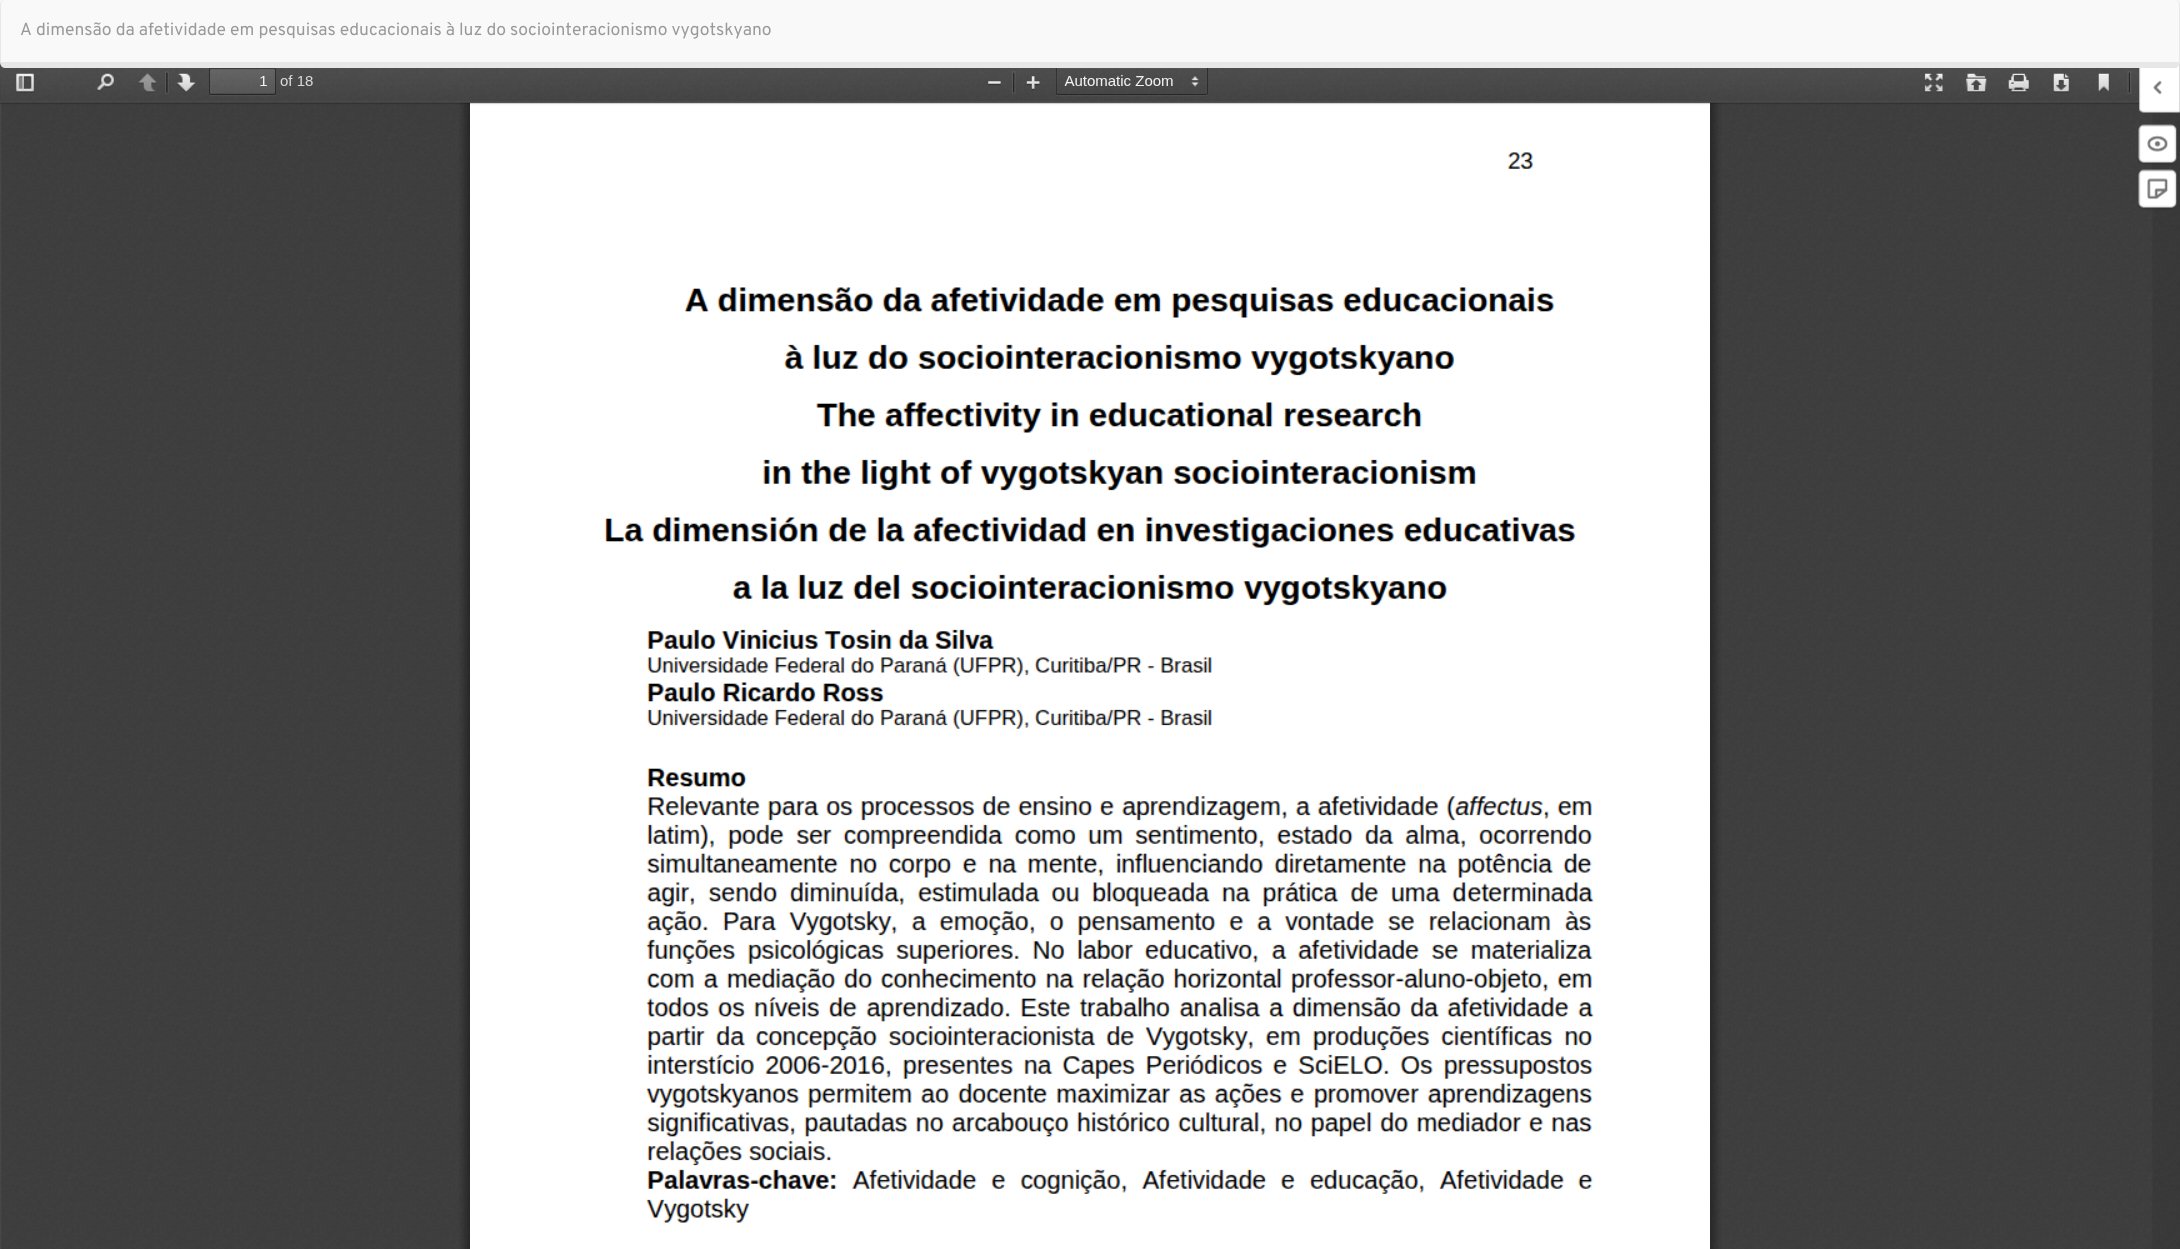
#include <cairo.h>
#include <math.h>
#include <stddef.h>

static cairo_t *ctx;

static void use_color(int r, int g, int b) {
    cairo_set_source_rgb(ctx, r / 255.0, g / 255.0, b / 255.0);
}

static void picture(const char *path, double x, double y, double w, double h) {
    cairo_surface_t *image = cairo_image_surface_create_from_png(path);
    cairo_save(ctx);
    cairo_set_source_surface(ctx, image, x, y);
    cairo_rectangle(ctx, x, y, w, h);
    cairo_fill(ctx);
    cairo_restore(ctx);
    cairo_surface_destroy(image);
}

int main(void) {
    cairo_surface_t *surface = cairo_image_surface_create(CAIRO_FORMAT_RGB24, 2180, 1249);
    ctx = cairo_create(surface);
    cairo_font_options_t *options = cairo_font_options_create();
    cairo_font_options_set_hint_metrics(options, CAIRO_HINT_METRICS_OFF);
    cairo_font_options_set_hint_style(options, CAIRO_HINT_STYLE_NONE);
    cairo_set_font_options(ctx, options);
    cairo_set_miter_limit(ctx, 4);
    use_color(249, 249, 249);
    cairo_paint(ctx);
    picture("img1.png", 0, 62, 2180, 1187);
    use_color(231, 231, 231);
    cairo_set_fill_rule(ctx, CAIRO_FILL_RULE_EVEN_ODD);
    cairo_new_path(ctx);
    cairo_move_to(ctx, 5, 0);
    cairo_line_to(ctx, 2175, 0);
    cairo_curve_to(ctx, 2178, 0, 2180, 2, 2180, 5);
    cairo_line_to(ctx, 2180, 62);
    cairo_curve_to(ctx, 2180, 65, 2178, 68, 2175, 68);
    cairo_line_to(ctx, 5, 68);
    cairo_curve_to(ctx, 2, 68, 0, 65, 0, 62);
    cairo_line_to(ctx, 0, 5);
    cairo_curve_to(ctx, 0, 2, 2, 0, 5, 0);
    cairo_close_path(ctx);
    cairo_move_to(ctx, 5, 0);
    cairo_line_to(ctx, 2175, 0);
    cairo_curve_to(ctx, 2177, 0, 2179, 2, 2179, 5);
    cairo_line_to(ctx, 2179, 62);
    cairo_line_to(ctx, 1, 62);
    cairo_line_to(ctx, 1, 5);
    cairo_curve_to(ctx, 1, 2, 3, 0, 5, 0);
    cairo_close_path(ctx);
    cairo_fill(ctx);
    cairo_select_font_face(ctx, "Overpass", CAIRO_FONT_SLANT_NORMAL, CAIRO_FONT_WEIGHT_NORMAL);
    cairo_set_font_size(ctx, 17.5);
    use_color(153, 153, 153);
    cairo_move_to(ctx, 20, 35);
    cairo_show_text(ctx, "A dimensão da afetividade em pesquisas educacionais à luz do sociointeracionismo vygotskyano");
    cairo_surface_write_to_png(surface, "result.png");
    cairo_font_options_destroy(options);
    cairo_destroy(ctx);
    cairo_surface_destroy(surface);
    return 0;
}
